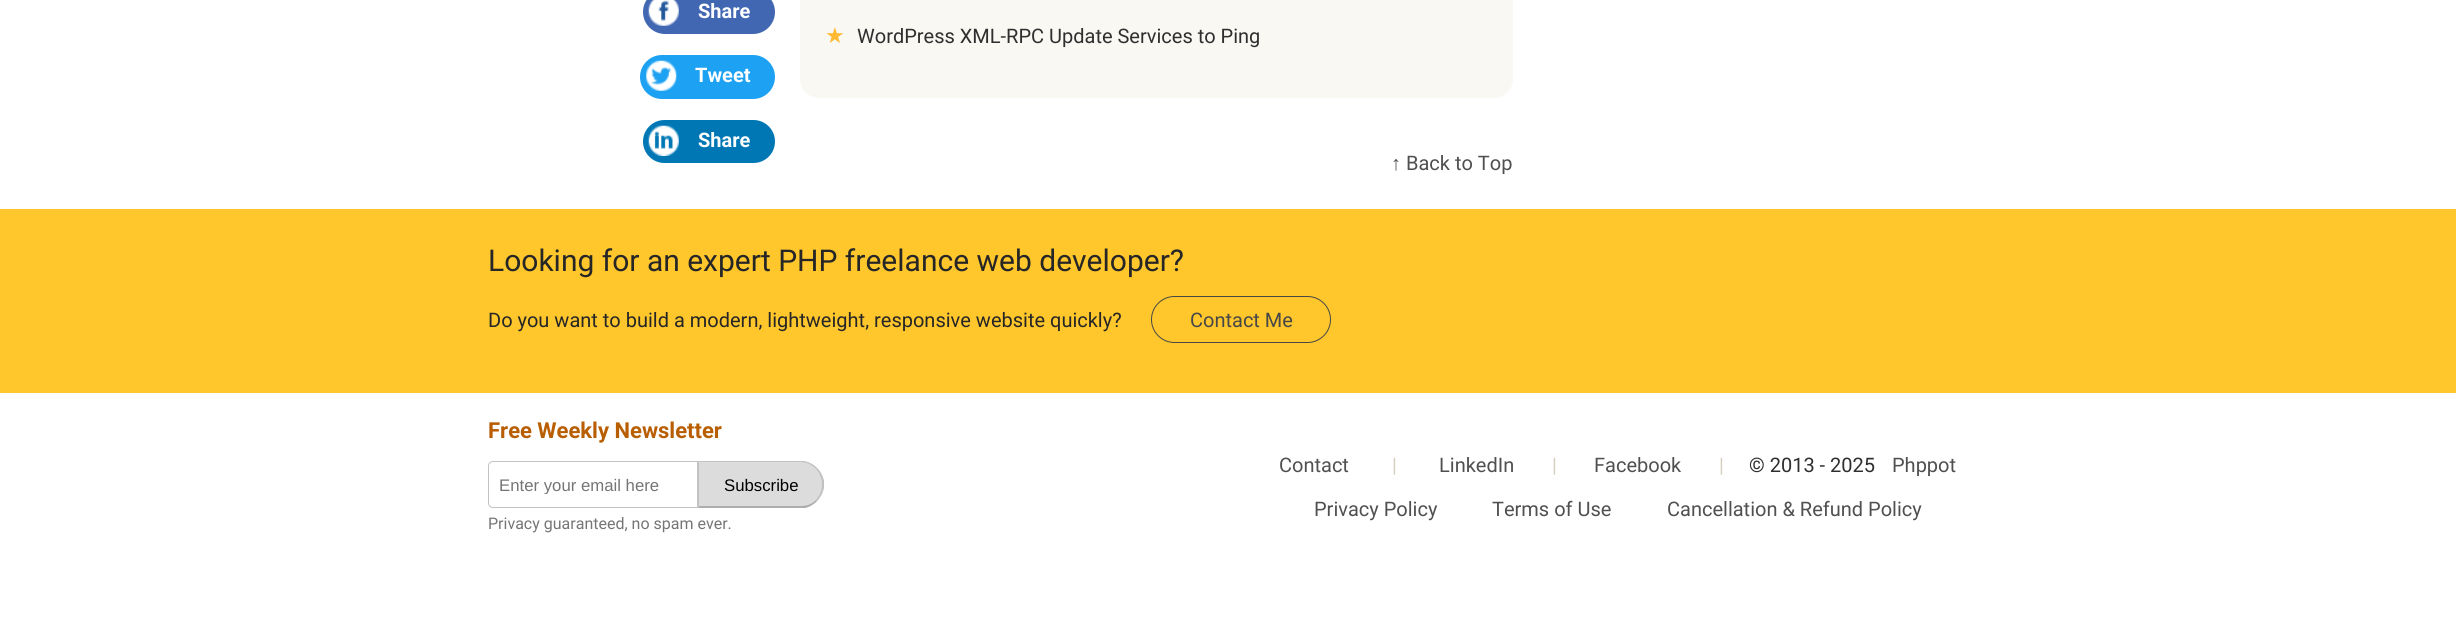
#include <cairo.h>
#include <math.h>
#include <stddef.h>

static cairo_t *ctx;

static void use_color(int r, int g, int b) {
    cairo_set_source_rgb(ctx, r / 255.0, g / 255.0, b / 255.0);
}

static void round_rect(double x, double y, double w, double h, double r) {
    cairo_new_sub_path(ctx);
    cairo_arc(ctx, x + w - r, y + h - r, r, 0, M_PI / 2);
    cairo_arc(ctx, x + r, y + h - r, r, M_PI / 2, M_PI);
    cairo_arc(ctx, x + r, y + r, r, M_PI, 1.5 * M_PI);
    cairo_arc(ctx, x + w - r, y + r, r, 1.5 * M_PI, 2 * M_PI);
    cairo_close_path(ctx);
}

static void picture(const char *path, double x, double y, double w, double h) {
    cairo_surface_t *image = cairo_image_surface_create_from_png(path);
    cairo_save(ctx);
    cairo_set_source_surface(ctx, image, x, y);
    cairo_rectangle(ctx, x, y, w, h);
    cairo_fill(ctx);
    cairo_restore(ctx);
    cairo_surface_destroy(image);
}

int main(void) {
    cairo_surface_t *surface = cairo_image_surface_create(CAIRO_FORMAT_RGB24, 2456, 636);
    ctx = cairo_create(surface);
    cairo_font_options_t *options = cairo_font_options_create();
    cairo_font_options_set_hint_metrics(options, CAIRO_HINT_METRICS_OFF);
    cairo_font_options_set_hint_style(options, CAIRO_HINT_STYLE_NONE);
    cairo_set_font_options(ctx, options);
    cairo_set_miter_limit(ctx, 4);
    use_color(255, 255, 255);
    cairo_paint(ctx);
    use_color(66, 103, 178);
    round_rect(643, -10, 132, 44, 22);
    cairo_fill(ctx);
    picture("img1.png", 648, 0, 31, 26);
    cairo_select_font_face(ctx, "Roboto", CAIRO_FONT_SLANT_NORMAL, CAIRO_FONT_WEIGHT_BOLD);
    cairo_set_font_size(ctx, 20);
    use_color(255, 255, 255);
    cairo_move_to(ctx, 698, 18);
    cairo_show_text(ctx, "Share");
    use_color(29, 161, 242);
    round_rect(640, 55, 135, 44, 22);
    cairo_fill(ctx);
    picture("img2.png", 646, 60, 31, 31);
    use_color(255, 255, 255);
    cairo_move_to(ctx, 695, 82);
    cairo_show_text(ctx, "Tweet");
    use_color(0, 119, 181);
    round_rect(643, 120, 132, 43, 21.5);
    cairo_fill(ctx);
    picture("img3.png", 648, 125, 31, 31);
    use_color(255, 255, 255);
    cairo_move_to(ctx, 698, 147);
    cairo_show_text(ctx, "Share");
    use_color(249, 248, 243);
    round_rect(800, -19, 713, 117, 19);
    cairo_fill(ctx);
    cairo_select_font_face(ctx, "DejaVu Sans", CAIRO_FONT_SLANT_NORMAL, CAIRO_FONT_WEIGHT_NORMAL);
    cairo_set_font_size(ctx, 22);
    use_color(255, 185, 50);
    cairo_move_to(ctx, 825, 43);
    cairo_show_text(ctx, "★");
    cairo_select_font_face(ctx, "Roboto", CAIRO_FONT_SLANT_NORMAL, CAIRO_FONT_WEIGHT_NORMAL);
    cairo_set_font_size(ctx, 20);
    use_color(47, 47, 47);
    cairo_move_to(ctx, 857, 43);
    cairo_show_text(ctx, "WordPress XML-RPC Update Services to Ping");
    cairo_select_font_face(ctx, "Liberation Sans", CAIRO_FONT_SLANT_NORMAL, CAIRO_FONT_WEIGHT_NORMAL);
    use_color(80, 80, 80);
    cairo_move_to(ctx, 1391, 170);
    cairo_show_text(ctx, "↑");
    cairo_select_font_face(ctx, "Roboto", CAIRO_FONT_SLANT_NORMAL, CAIRO_FONT_WEIGHT_NORMAL);
    cairo_move_to(ctx, 1406, 170);
    cairo_show_text(ctx, "Back to Top");
    use_color(255, 199, 44);
    cairo_rectangle(ctx, 0, 209, 2456, 184);
    cairo_fill(ctx);
    cairo_set_font_size(ctx, 30);
    use_color(38, 38, 38);
    cairo_move_to(ctx, 488, 271);
    cairo_show_text(ctx, "Looking for an expert PHP freelance web developer?");
    cairo_set_font_size(ctx, 20);
    cairo_move_to(ctx, 488, 327);
    cairo_show_text(ctx, "Do you want to build a modern, lightweight, responsive website quickly?");
    round_rect(1151.5, 296.5, 179, 46, 23);
    use_color(71, 71, 71);
    cairo_set_line_width(ctx, 1);
    cairo_stroke(ctx);
    cairo_move_to(ctx, 1190, 327);
    cairo_show_text(ctx, "Contact Me");
    cairo_select_font_face(ctx, "Roboto", CAIRO_FONT_SLANT_NORMAL, CAIRO_FONT_WEIGHT_BOLD);
    cairo_set_font_size(ctx, 22);
    use_color(185, 93, 1);
    cairo_move_to(ctx, 488, 438);
    cairo_show_text(ctx, "Free Weekly Newsletter");
    cairo_new_path(ctx);
    cairo_move_to(ctx, 493, 461.5);
    cairo_line_to(ctx, 697.5, 461.5);
    cairo_line_to(ctx, 697.5, 507.5);
    cairo_line_to(ctx, 493, 507.5);
    cairo_curve_to(ctx, 490.5, 507.5, 488.5, 505.5, 488.5, 503);
    cairo_line_to(ctx, 488.5, 466);
    cairo_curve_to(ctx, 488.5, 463.5, 490.5, 461.5, 493, 461.5);
    cairo_close_path(ctx);
    use_color(195, 195, 195);
    cairo_stroke(ctx);
    cairo_save(ctx);
    cairo_rectangle(ctx, 499, 475, 187, 19);
    cairo_clip(ctx);
    cairo_select_font_face(ctx, "Liberation Sans", CAIRO_FONT_SLANT_NORMAL, CAIRO_FONT_WEIGHT_NORMAL);
    cairo_set_font_size(ctx, 16.75);
    use_color(117, 117, 117);
    cairo_move_to(ctx, 499, 491);
    cairo_show_text(ctx, "Enter your email here");
    cairo_restore(ctx);
    use_color(220, 220, 220);
    cairo_new_path(ctx);
    cairo_move_to(ctx, 698, 461);
    cairo_line_to(ctx, 800.5, 461);
    cairo_curve_to(ctx, 813.5, 461, 824, 471.5, 824, 484.5);
    cairo_curve_to(ctx, 824, 497.5, 813.5, 508, 800.5, 508);
    cairo_line_to(ctx, 698, 508);
    cairo_close_path(ctx);
    cairo_fill(ctx);
    use_color(195, 195, 195);
    cairo_new_path(ctx);
    cairo_move_to(ctx, 699, 462);
    cairo_line_to(ctx, 699, 463);
    cairo_line_to(ctx, 698, 461);
    cairo_line_to(ctx, 804, 461);
    cairo_curve_to(ctx, 809, 462, 813, 464, 817, 468);
    cairo_line_to(ctx, 816, 469);
    cairo_curve_to(ctx, 812, 465, 807, 462, 801, 462);
    cairo_close_path(ctx);
    cairo_fill(ctx);
    use_color(193, 193, 193);
    cairo_new_path(ctx);
    cairo_move_to(ctx, 824, 487.5);
    cairo_curve_to(ctx, 823, 492.5, 820.5, 497, 817, 501);
    cairo_line_to(ctx, 816, 499.5);
    cairo_curve_to(ctx, 824, 491.5, 824, 477.5, 816, 469);
    cairo_line_to(ctx, 817, 468);
    cairo_curve_to(ctx, 820.5, 471.5, 823, 476, 824, 481);
    cairo_close_path(ctx);
    cairo_fill(ctx);
    use_color(173, 173, 173);
    cairo_new_path(ctx);
    cairo_move_to(ctx, 698, 508);
    cairo_line_to(ctx, 699, 506);
    cairo_line_to(ctx, 801, 506);
    cairo_curve_to(ctx, 807, 506, 812, 504, 816, 500);
    cairo_line_to(ctx, 817, 501);
    cairo_curve_to(ctx, 814, 504, 810, 507, 805, 508);
    cairo_close_path(ctx);
    cairo_fill(ctx);
    use_color(193, 193, 193);
    cairo_new_path(ctx);
    cairo_move_to(ctx, 698, 507);
    cairo_line_to(ctx, 698, 462);
    cairo_line_to(ctx, 699, 463);
    cairo_line_to(ctx, 699, 506);
    cairo_close_path(ctx);
    cairo_fill(ctx);
    cairo_select_font_face(ctx, "Liberation Sans", CAIRO_FONT_SLANT_NORMAL, CAIRO_FONT_WEIGHT_NORMAL);
    cairo_set_font_size(ctx, 16.75);
    use_color(0, 0, 0);
    cairo_move_to(ctx, 724, 491);
    cairo_show_text(ctx, "Subscribe");
    cairo_select_font_face(ctx, "Roboto", CAIRO_FONT_SLANT_NORMAL, CAIRO_FONT_WEIGHT_NORMAL);
    cairo_set_font_size(ctx, 16);
    use_color(117, 117, 117);
    cairo_move_to(ctx, 488, 529);
    cairo_show_text(ctx, "Privacy guaranteed, no spam ever.");
    cairo_set_font_size(ctx, 20);
    use_color(80, 80, 80);
    cairo_move_to(ctx, 1279, 472);
    cairo_show_text(ctx, "Contact");
    use_color(212, 206, 190);
    cairo_move_to(ctx, 1392, 472);
    cairo_show_text(ctx, "|");
    use_color(80, 80, 80);
    cairo_move_to(ctx, 1439, 472);
    cairo_show_text(ctx, "LinkedIn");
    use_color(212, 206, 190);
    cairo_move_to(ctx, 1552, 472);
    cairo_show_text(ctx, "|");
    use_color(80, 80, 80);
    cairo_move_to(ctx, 1594, 472);
    cairo_show_text(ctx, "Facebook");
    use_color(212, 206, 190);
    cairo_move_to(ctx, 1719, 472);
    cairo_show_text(ctx, "|");
    use_color(47, 47, 47);
    cairo_move_to(ctx, 1749, 472);
    cairo_show_text(ctx, "© 2013 - 2025");
    use_color(80, 80, 80);
    cairo_move_to(ctx, 1892, 472);
    cairo_show_text(ctx, "Phppot");
    cairo_move_to(ctx, 1314, 516);
    cairo_show_text(ctx, "Privacy Policy");
    cairo_move_to(ctx, 1492, 516);
    cairo_show_text(ctx, "Terms of Use");
    cairo_move_to(ctx, 1667, 516);
    cairo_show_text(ctx, "Cancellation & Refund Policy");
    cairo_surface_write_to_png(surface, "result.png");
    cairo_font_options_destroy(options);
    cairo_destroy(ctx);
    cairo_surface_destroy(surface);
    return 0;
}
